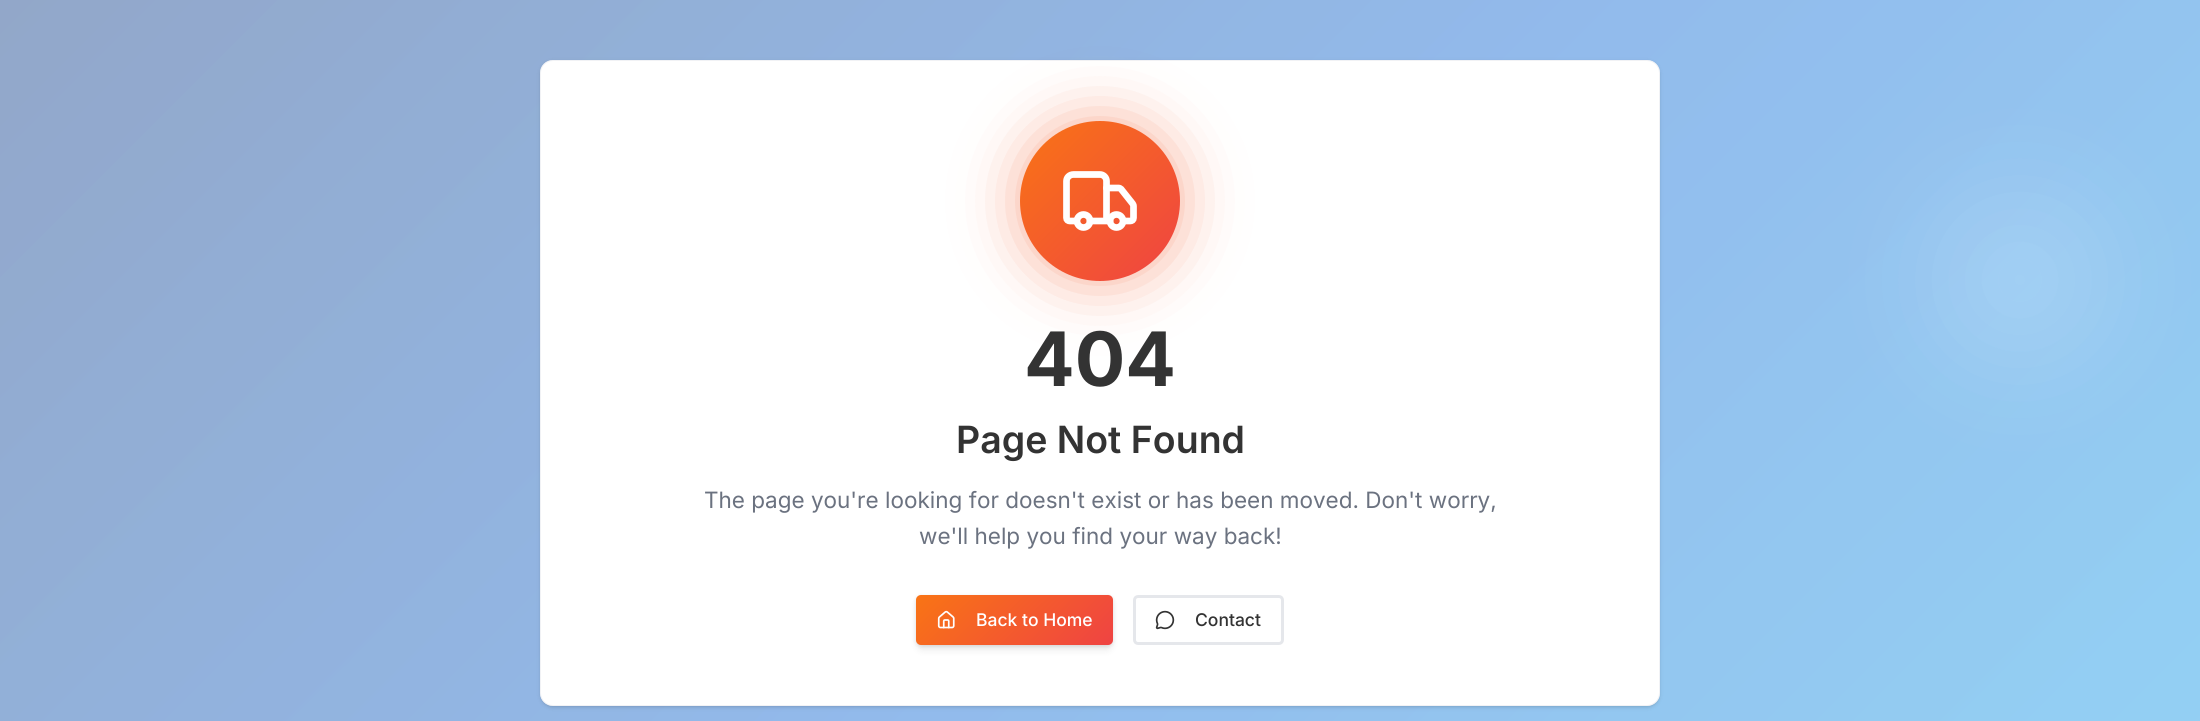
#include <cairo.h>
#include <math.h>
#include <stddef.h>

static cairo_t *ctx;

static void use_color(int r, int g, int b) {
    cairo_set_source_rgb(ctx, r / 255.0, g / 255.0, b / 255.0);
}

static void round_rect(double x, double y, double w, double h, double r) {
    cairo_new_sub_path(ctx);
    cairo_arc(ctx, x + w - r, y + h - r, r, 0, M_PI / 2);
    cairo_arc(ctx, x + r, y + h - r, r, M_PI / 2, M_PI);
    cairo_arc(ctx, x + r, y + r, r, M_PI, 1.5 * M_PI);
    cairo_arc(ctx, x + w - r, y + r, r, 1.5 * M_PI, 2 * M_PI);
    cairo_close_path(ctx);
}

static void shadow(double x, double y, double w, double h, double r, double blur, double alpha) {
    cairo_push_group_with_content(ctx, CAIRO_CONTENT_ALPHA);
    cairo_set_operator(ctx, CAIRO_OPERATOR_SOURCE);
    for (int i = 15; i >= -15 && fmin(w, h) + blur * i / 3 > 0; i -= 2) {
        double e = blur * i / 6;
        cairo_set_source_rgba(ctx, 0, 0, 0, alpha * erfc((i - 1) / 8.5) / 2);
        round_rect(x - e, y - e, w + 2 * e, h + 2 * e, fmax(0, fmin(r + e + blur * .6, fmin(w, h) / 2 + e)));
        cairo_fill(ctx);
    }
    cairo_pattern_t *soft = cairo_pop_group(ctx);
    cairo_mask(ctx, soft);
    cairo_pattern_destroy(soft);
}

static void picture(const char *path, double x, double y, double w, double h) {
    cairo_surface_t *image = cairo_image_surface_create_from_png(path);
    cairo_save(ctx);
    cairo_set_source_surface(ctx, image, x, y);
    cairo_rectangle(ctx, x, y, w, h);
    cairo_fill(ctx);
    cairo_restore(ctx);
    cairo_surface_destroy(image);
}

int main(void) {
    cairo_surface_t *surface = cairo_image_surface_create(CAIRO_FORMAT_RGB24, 2200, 721);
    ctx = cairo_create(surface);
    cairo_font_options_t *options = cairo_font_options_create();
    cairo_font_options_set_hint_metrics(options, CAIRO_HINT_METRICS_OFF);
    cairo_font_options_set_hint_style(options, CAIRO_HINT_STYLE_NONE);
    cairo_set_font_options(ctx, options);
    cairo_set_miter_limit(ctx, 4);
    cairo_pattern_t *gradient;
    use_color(255, 255, 255);
    cairo_paint(ctx);
    gradient = cairo_pattern_create_linear(282, -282, 1918, 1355);
    cairo_pattern_add_color_stop_rgba(gradient, 0, 0.808, 0.847, 0.906, 1);
    cairo_pattern_add_color_stop_rgba(gradient, 0.5, 0.808, 0.882, 0.969, 1);
    cairo_pattern_add_color_stop_rgba(gradient, 1, 0.812, 0.929, 0.984, 1);
    cairo_set_source(ctx, gradient);
    cairo_pattern_destroy(gradient);
    cairo_rectangle(ctx, 0, 0, 2200, 721);
    cairo_fill(ctx);
    gradient = cairo_pattern_create_linear(282, -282, 1918, 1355);
    cairo_pattern_add_color_stop_rgba(gradient, 0, 0.024, 0.212, 0.518, 0.3);
    cairo_pattern_add_color_stop_rgba(gradient, 0.5, 0.027, 0.388, 0.835, 0.3);
    cairo_pattern_add_color_stop_rgba(gradient, 1, 0.051, 0.635, 0.906, 0.3);
    cairo_set_source(ctx, gradient);
    cairo_pattern_destroy(gradient);
    cairo_rectangle(ctx, 0, 0, 2200, 721);
    cairo_fill(ctx);
    use_color(0, 0, 0);
    shadow(541, 63, 1118, 643, 11, 1, 0.1);
    shadow(540, 61, 1120, 647, 13, 2, 0.1);
    use_color(255, 255, 255);
    round_rect(540, 60, 1120, 646, 13);
    cairo_fill(ctx);
    round_rect(540.5, 60.5, 1119, 645, 12.5);
    cairo_set_source_rgba(ctx, 0.898, 0.906, 0.922, 0.5);
    cairo_set_line_width(ctx, 1);
    cairo_stroke(ctx);
    use_color(244, 92, 44);
    shadow(1020, 121, 160, 160, 80, 30, 0.5);
    gradient = cairo_pattern_create_linear(1020, 121, 1180, 281);
    cairo_pattern_add_color_stop_rgba(gradient, 0, 0.976, 0.455, 0.082, 1);
    cairo_pattern_add_color_stop_rgba(gradient, 1, 0.937, 0.263, 0.263, 1);
    cairo_set_source(ctx, gradient);
    cairo_pattern_destroy(gradient);
    cairo_arc(ctx, 1100, 201, 80, 0, 2 * M_PI);
    cairo_fill(ctx);
    cairo_new_path(ctx);
    cairo_move_to(ctx, 1106.5, 221);
    cairo_line_to(ctx, 1106.5, 181);
    cairo_curve_to(ctx, 1106.5, 177.5, 1103.5, 174.5, 1100, 174.5);
    cairo_line_to(ctx, 1073.5, 174.5);
    cairo_curve_to(ctx, 1069.5, 174.5, 1066.5, 177.5, 1066.5, 181);
    cairo_line_to(ctx, 1066.5, 218);
    cairo_curve_to(ctx, 1066.5, 220, 1068, 221, 1070, 221);
    cairo_line_to(ctx, 1076.5, 221);
    cairo_move_to(ctx, 1110, 221);
    cairo_line_to(ctx, 1090, 221);
    use_color(255, 255, 255);
    cairo_set_line_width(ctx, 6.7);
    cairo_set_line_cap(ctx, CAIRO_LINE_CAP_ROUND);
    cairo_set_line_join(ctx, CAIRO_LINE_JOIN_ROUND);
    cairo_stroke(ctx);
    cairo_new_path(ctx);
    cairo_move_to(ctx, 1123.5, 221);
    cairo_line_to(ctx, 1130, 221);
    cairo_curve_to(ctx, 1132, 221, 1133.5, 220, 1133.5, 218);
    cairo_line_to(ctx, 1133.5, 206);
    cairo_curve_to(ctx, 1133.5, 205, 1133, 204.5, 1132.5, 203.5);
    cairo_line_to(ctx, 1121, 189);
    cairo_curve_to(ctx, 1120.5, 188.5, 1119.5, 188, 1118.5, 188);
    cairo_line_to(ctx, 1106.5, 188);
    cairo_stroke(ctx);
    cairo_arc(ctx, 1116.5, 221, 6.5, 0, 2 * M_PI);
    cairo_set_line_cap(ctx, CAIRO_LINE_CAP_BUTT);
    cairo_set_line_join(ctx, CAIRO_LINE_JOIN_MITER);
    cairo_stroke(ctx);
    cairo_arc(ctx, 1083.5, 221, 6.5, 0, 2 * M_PI);
    cairo_stroke(ctx);
    cairo_select_font_face(ctx, "Inter", CAIRO_FONT_SLANT_NORMAL, CAIRO_FONT_WEIGHT_BOLD);
    cairo_set_font_size(ctx, 75);
    use_color(51, 51, 51);
    cairo_move_to(ctx, 1024, 386);
    cairo_show_text(ctx, "404");
    cairo_select_font_face(ctx, "Inter SemiBold", CAIRO_FONT_SLANT_NORMAL, CAIRO_FONT_WEIGHT_NORMAL);
    cairo_set_font_size(ctx, 37.5);
    cairo_move_to(ctx, 956, 453);
    cairo_show_text(ctx, "Page Not Found");
    cairo_select_font_face(ctx, "Inter", CAIRO_FONT_SLANT_NORMAL, CAIRO_FONT_WEIGHT_NORMAL);
    cairo_set_font_size(ctx, 22.5);
    use_color(107, 114, 128);
    cairo_move_to(ctx, 704, 508);
    cairo_show_text(ctx, "The page you're looking for doesn't exist or has been moved. Don't worry,");
    cairo_move_to(ctx, 919, 544);
    cairo_show_text(ctx, "we'll help you find your way back!");
    use_color(0, 0, 0);
    shadow(918, 601, 193, 48, 4, 4, 0.1);
    shadow(916, 596, 197, 50, 5, 2, 0.1);
    gradient = cairo_pattern_create_linear(953, 558, 1076, 682);
    cairo_pattern_add_color_stop_rgba(gradient, 0, 0.976, 0.455, 0.082, 1);
    cairo_pattern_add_color_stop_rgba(gradient, 1, 0.937, 0.263, 0.263, 1);
    cairo_set_source(ctx, gradient);
    cairo_pattern_destroy(gradient);
    round_rect(916, 595, 197, 50, 5);
    cairo_fill(ctx);
    picture("img1.png", 937, 610, 18, 19);
    cairo_select_font_face(ctx, "Inter Medium", CAIRO_FONT_SLANT_NORMAL, CAIRO_FONT_WEIGHT_NORMAL);
    cairo_set_font_size(ctx, 17.5);
    use_color(255, 255, 255);
    cairo_move_to(ctx, 976, 626);
    cairo_show_text(ctx, "Back to Home");
    round_rect(1134.5, 596.5, 148, 47, 3.5);
    use_color(229, 231, 235);
    cairo_set_line_width(ctx, 3);
    cairo_stroke(ctx);
    picture("img2.png", 1155, 610, 20, 20);
    use_color(51, 51, 51);
    cairo_move_to(ctx, 1195, 626);
    cairo_show_text(ctx, "Contact");
    use_color(224, 242, 254);
    shadow(1940, 200, 160, 160, 80, 50, 0.2);
    cairo_surface_write_to_png(surface, "result.png");
    cairo_font_options_destroy(options);
    cairo_destroy(ctx);
    cairo_surface_destroy(surface);
    return 0;
}
